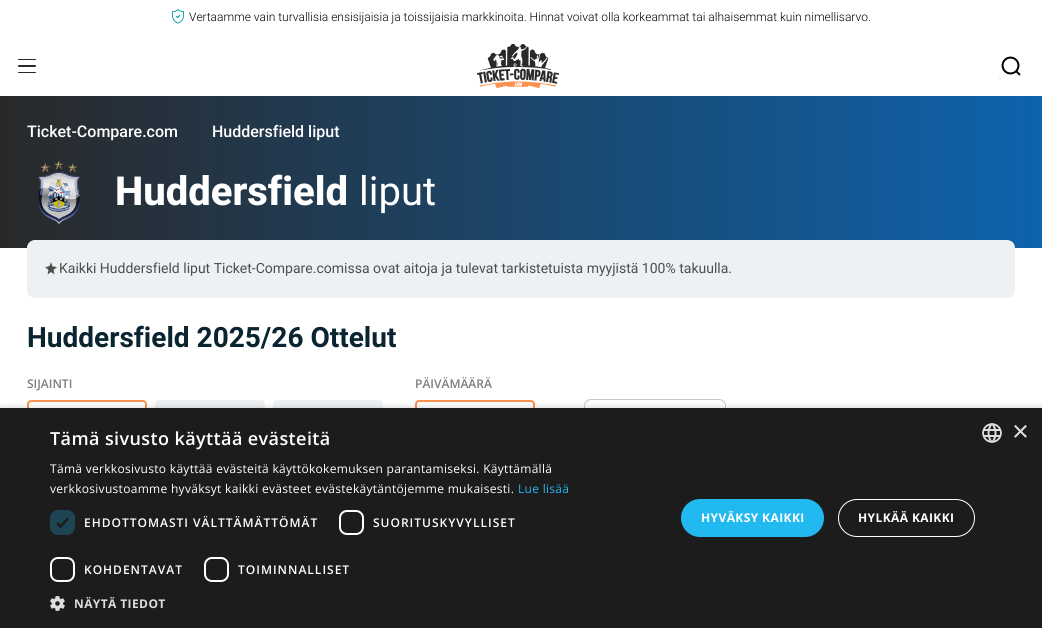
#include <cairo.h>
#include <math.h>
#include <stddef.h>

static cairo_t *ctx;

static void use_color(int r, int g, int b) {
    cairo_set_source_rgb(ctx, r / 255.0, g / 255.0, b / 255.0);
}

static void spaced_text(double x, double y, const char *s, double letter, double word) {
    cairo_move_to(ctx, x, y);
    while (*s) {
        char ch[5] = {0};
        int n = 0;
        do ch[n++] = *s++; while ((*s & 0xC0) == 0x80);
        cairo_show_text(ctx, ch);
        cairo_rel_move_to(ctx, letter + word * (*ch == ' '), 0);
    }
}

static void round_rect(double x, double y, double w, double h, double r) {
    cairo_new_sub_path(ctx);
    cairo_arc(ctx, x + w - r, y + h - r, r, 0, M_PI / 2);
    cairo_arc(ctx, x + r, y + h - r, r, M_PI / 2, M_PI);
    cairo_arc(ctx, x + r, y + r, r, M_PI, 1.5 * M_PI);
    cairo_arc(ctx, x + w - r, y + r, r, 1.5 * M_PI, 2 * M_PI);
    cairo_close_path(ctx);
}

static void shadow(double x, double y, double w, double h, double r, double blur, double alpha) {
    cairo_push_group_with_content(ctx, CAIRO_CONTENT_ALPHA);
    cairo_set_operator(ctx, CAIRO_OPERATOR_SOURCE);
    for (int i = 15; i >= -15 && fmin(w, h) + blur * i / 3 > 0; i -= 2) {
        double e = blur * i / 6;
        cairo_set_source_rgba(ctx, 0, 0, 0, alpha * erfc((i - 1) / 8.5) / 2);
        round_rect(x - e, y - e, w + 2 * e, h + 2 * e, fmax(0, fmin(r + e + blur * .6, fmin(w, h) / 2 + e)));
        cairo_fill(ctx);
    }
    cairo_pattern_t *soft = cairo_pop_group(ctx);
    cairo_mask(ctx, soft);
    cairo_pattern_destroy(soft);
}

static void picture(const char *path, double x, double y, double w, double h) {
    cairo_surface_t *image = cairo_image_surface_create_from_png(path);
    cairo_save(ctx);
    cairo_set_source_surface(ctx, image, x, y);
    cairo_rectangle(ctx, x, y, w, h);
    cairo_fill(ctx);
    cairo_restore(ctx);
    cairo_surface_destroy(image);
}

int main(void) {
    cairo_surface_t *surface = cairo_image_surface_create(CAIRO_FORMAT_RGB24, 1042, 628);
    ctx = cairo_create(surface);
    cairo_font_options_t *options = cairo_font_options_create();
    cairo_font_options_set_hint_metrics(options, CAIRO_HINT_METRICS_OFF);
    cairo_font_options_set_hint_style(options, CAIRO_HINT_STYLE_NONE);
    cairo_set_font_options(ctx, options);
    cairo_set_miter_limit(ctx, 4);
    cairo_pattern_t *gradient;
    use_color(255, 255, 255);
    cairo_paint(ctx);
    picture("img1.png", 171, 9, 14, 15);
    cairo_select_font_face(ctx, "Roboto Light", CAIRO_FONT_SLANT_NORMAL, CAIRO_FONT_WEIGHT_NORMAL);
    cairo_set_font_size(ctx, 12);
    use_color(0, 0, 0);
    cairo_move_to(ctx, 189, 21);
    cairo_show_text(ctx, "Vertaamme vain turvallisia ensisijaisia ja toissijaisia markkinoita. Hinnat voivat olla korkeammat tai alhaisemmat kuin nimellisarvo.");
    use_color(41, 41, 41);
    round_rect(18, 59, 18, 1, 0.5);
    cairo_fill(ctx);
    round_rect(18, 72, 18, 1, 0.5);
    cairo_fill(ctx);
    round_rect(18, 65, 18, 2, 1);
    cairo_fill(ctx);
    picture("img2.png", 477, 44, 82, 44);
    picture("img3.png", 1001, 56, 20, 20);
    use_color(232, 234, 236);
    cairo_arc(ctx, 1000, 79, 1, 0, 2 * M_PI);
    cairo_fill(ctx);
    gradient = cairo_pattern_create_linear(0, 172, 1042, 172);
    cairo_pattern_add_color_stop_rgba(gradient, 0, 0.161, 0.161, 0.161, 1);
    cairo_pattern_add_color_stop_rgba(gradient, 1, 0.055, 0.388, 0.678, 1);
    cairo_set_source(ctx, gradient);
    cairo_pattern_destroy(gradient);
    cairo_rectangle(ctx, 0, 96, 1042, 152);
    cairo_fill(ctx);
    cairo_select_font_face(ctx, "Roboto Medium", CAIRO_FONT_SLANT_NORMAL, CAIRO_FONT_WEIGHT_NORMAL);
    cairo_set_font_size(ctx, 16);
    use_color(255, 255, 255);
    cairo_move_to(ctx, 27, 137);
    cairo_show_text(ctx, "Ticket-Compare.com");
    cairo_move_to(ctx, 212, 137);
    cairo_show_text(ctx, "Huddersfield liput");
    picture("img4.png", 38, 160, 42, 64);
    cairo_select_font_face(ctx, "Roboto ExtraBold", CAIRO_FONT_SLANT_NORMAL, CAIRO_FONT_WEIGHT_NORMAL);
    cairo_set_font_size(ctx, 40);
    cairo_move_to(ctx, 115, 205);
    cairo_show_text(ctx, "Huddersfield");
    cairo_select_font_face(ctx, "Roboto", CAIRO_FONT_SLANT_NORMAL, CAIRO_FONT_WEIGHT_NORMAL);
    cairo_move_to(ctx, 359, 205);
    cairo_show_text(ctx, "liput");
    use_color(238, 241, 243);
    round_rect(27, 240, 988, 58, 8);
    cairo_fill(ctx);
    picture("img5.png", 45, 262, 12, 13);
    cairo_set_font_size(ctx, 14);
    use_color(77, 77, 77);
    cairo_move_to(ctx, 59, 273);
    cairo_show_text(ctx, "Kaikki Huddersfield liput Ticket-Compare.comissa ovat aitoja ja tulevat tarkistetuista myyjistä 100% takuulla.");
    cairo_select_font_face(ctx, "Roboto", CAIRO_FONT_SLANT_NORMAL, CAIRO_FONT_WEIGHT_BOLD);
    cairo_set_font_size(ctx, 28);
    use_color(11, 36, 49);
    cairo_move_to(ctx, 27, 347);
    cairo_show_text(ctx, "Huddersfield 2025/26 Ottelut");
    cairo_select_font_face(ctx, "Open Sans SemiBold", CAIRO_FONT_SLANT_NORMAL, CAIRO_FONT_WEIGHT_NORMAL);
    cairo_set_font_size(ctx, 12);
    use_color(125, 125, 125);
    cairo_move_to(ctx, 27, 388);
    cairo_show_text(ctx, "SIJAINTI");
    round_rect(28, 401, 118, 38, 3);
    use_color(252, 144, 77);
    cairo_stroke(ctx);
    use_color(238, 241, 243);
    round_rect(156, 401, 108, 38, 3);
    cairo_fill_preserve(ctx);
    cairo_stroke(ctx);
    round_rect(274, 401, 108, 38, 3);
    cairo_fill_preserve(ctx);
    cairo_stroke(ctx);
    use_color(125, 125, 125);
    cairo_move_to(ctx, 415, 388);
    cairo_show_text(ctx, "PÄIVÄMÄÄRÄ");
    round_rect(416, 401, 118, 38, 3);
    use_color(252, 144, 77);
    cairo_stroke(ctx);
    round_rect(584.5, 399.5, 141, 41, 6.5);
    use_color(199, 201, 204);
    cairo_set_line_width(ctx, 1);
    cairo_stroke(ctx);
    use_color(0, 0, 0);
    shadow(1, 410, 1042, 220, 0, 4, 0.35);
    use_color(28, 28, 28);
    cairo_rectangle(ctx, 0, 408, 1042, 220);
    cairo_fill(ctx);
    cairo_set_font_size(ctx, 18);
    use_color(255, 255, 255);
    spaced_text(50, 445, "Tämä sivusto käyttää evästeitä", 0.4, 0);
    cairo_select_font_face(ctx, "Open Sans", CAIRO_FONT_SLANT_NORMAL, CAIRO_FONT_WEIGHT_NORMAL);
    cairo_set_font_size(ctx, 12);
    spaced_text(50, 473, "Tämä verkkosivusto käyttää evästeitä käyttökokemuksen parantamiseksi. Käyttämällä", 0.3, 0);
    spaced_text(50, 493, "verkkosivustoamme hyväksyt kaikki evästeet evästekäytäntöjemme mukaisesti.", 0.3, 0);
    use_color(34, 184, 240);
    spaced_text(518, 493, "Lue lisää", 0.3, 0);
    use_color(30, 69, 83);
    round_rect(50, 510, 25, 25, 8);
    cairo_fill(ctx);
    cairo_new_path(ctx);
    cairo_move_to(ctx, 57, 523);
    cairo_line_to(ctx, 60.5, 526.5);
    cairo_line_to(ctx, 68, 518.5);
    use_color(28, 28, 28);
    cairo_set_line_width(ctx, 2.6);
    cairo_stroke(ctx);
    cairo_select_font_face(ctx, "Open Sans SemiBold", CAIRO_FONT_SLANT_NORMAL, CAIRO_FONT_WEIGHT_NORMAL);
    use_color(255, 255, 255);
    spaced_text(84, 527, "EHDOTTOMASTI VÄLTTÄMÄTTÖMÄT", 1, 0);
    round_rect(340, 511, 23, 23, 7);
    cairo_set_line_width(ctx, 2);
    cairo_stroke(ctx);
    spaced_text(373, 527, "SUORITUSKYVYLLISET", 1, 0);
    round_rect(51, 558, 23, 23, 7);
    cairo_stroke(ctx);
    spaced_text(84, 574, "KOHDENTAVAT", 1, 0);
    round_rect(205, 558, 23, 23, 7);
    cairo_stroke(ctx);
    spaced_text(238, 574, "TOIMINNALLISET", 1, 0);
    picture("img6.png", 50, 596, 15, 15);
    cairo_select_font_face(ctx, "Open Sans", CAIRO_FONT_SLANT_NORMAL, CAIRO_FONT_WEIGHT_BOLD);
    use_color(221, 221, 221);
    spaced_text(74, 608, "NÄYTÄ TIEDOT", 0.4, 0);
    use_color(34, 184, 240);
    round_rect(681, 499, 143, 38, 19);
    cairo_fill(ctx);
    use_color(255, 255, 255);
    spaced_text(701, 522, "HYVÄKSY KAIKKI", 0.4, 0);
    round_rect(838.5, 499.5, 136, 37, 18.5);
    cairo_set_line_width(ctx, 1);
    cairo_stroke(ctx);
    spaced_text(858, 522, "HYLKÄÄ KAIKKI", 0.4, 0);
    picture("img7.png", 982, 423, 20, 20);
    cairo_select_font_face(ctx, "Liberation Sans", CAIRO_FONT_SLANT_NORMAL, CAIRO_FONT_WEIGHT_NORMAL);
    cairo_set_font_size(ctx, 29);
    use_color(221, 221, 221);
    cairo_move_to(ctx, 1012, 441);
    cairo_show_text(ctx, "×");
    cairo_surface_write_to_png(surface, "result.png");
    cairo_font_options_destroy(options);
    cairo_destroy(ctx);
    cairo_surface_destroy(surface);
    return 0;
}
